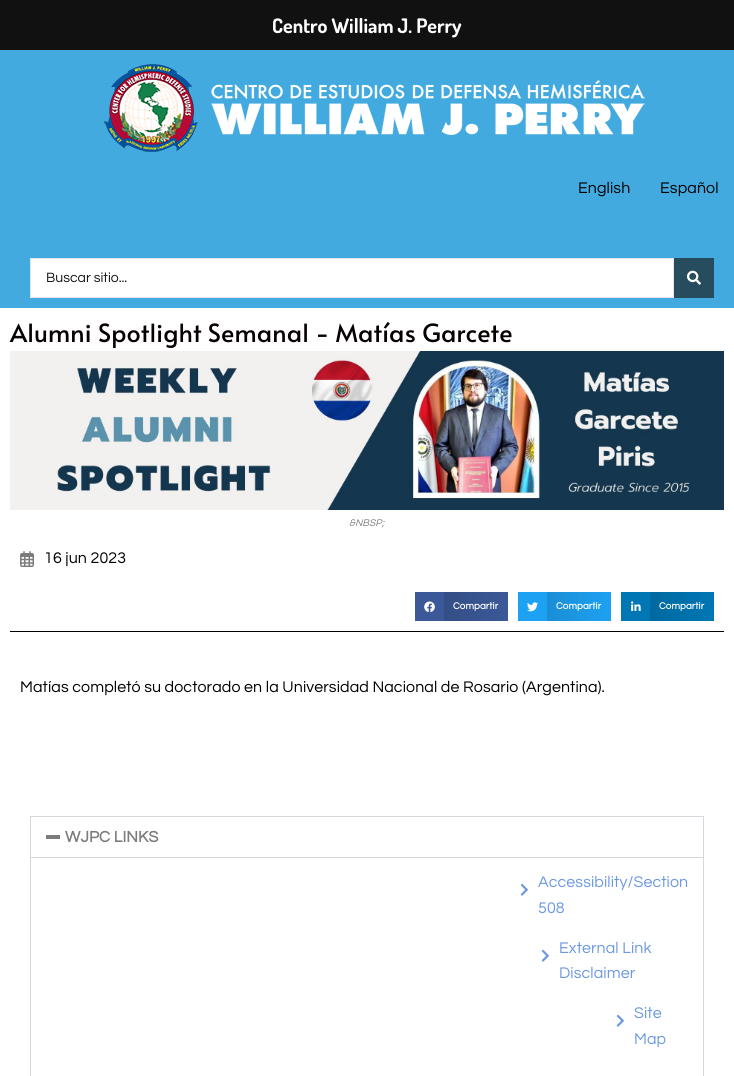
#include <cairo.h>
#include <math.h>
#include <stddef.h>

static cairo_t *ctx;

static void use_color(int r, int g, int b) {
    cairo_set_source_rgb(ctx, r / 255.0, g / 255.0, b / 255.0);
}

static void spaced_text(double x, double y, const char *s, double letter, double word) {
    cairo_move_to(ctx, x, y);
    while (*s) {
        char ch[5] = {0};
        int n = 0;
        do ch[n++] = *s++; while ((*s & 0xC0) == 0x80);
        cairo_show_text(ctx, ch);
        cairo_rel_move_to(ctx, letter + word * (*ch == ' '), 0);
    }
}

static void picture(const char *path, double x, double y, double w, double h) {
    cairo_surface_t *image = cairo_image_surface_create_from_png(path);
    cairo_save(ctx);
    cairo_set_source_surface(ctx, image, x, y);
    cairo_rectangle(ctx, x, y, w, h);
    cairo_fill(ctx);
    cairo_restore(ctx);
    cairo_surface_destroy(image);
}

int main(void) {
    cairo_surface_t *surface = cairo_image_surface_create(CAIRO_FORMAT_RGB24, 734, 1076);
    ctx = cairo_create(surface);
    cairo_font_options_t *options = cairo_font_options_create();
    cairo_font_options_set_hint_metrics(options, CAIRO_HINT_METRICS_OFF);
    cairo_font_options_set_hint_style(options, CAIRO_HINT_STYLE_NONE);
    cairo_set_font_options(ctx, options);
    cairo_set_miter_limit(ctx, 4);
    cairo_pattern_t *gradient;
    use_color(255, 255, 255);
    cairo_paint(ctx);
    use_color(17, 17, 17);
    cairo_rectangle(ctx, 0, 0, 734, 50);
    cairo_fill(ctx);
    cairo_select_font_face(ctx, "Dosis", CAIRO_FONT_SLANT_NORMAL, CAIRO_FONT_WEIGHT_BOLD);
    cairo_set_font_size(ctx, 20);
    use_color(255, 255, 255);
    cairo_move_to(ctx, 272, 33);
    cairo_show_text(ctx, "Centro William J. Perry");
    use_color(67, 170, 224);
    cairo_rectangle(ctx, 0, 50, 734, 258);
    cairo_fill(ctx);
    picture("img1.png", 104, 64, 541, 88);
    cairo_select_font_face(ctx, "Questrial", CAIRO_FONT_SLANT_NORMAL, CAIRO_FONT_WEIGHT_NORMAL);
    cairo_set_font_size(ctx, 16);
    use_color(0, 0, 0);
    spaced_text(578, 193, "English", 0.1, 0);
    spaced_text(660, 193, "Español", 0.1, 0);
    use_color(255, 255, 255);
    cairo_rectangle(ctx, 30.5, 258.5, 643, 39);
    cairo_fill_preserve(ctx);
    use_color(225, 229, 235);
    cairo_set_line_width(ctx, 1);
    cairo_stroke(ctx);
    cairo_set_font_size(ctx, 14);
    use_color(20, 20, 18);
    cairo_move_to(ctx, 46, 282);
    cairo_show_text(ctx, "Buscar sitio...");
    use_color(38, 76, 93);
    cairo_rectangle(ctx, 674, 258, 40, 40);
    cairo_fill(ctx);
    picture("img2.png", 687, 270, 14, 15);
    cairo_select_font_face(ctx, "Alata", CAIRO_FONT_SLANT_NORMAL, CAIRO_FONT_WEIGHT_NORMAL);
    cairo_set_font_size(ctx, 25);
    use_color(6, 0, 0);
    spaced_text(10, 342, "Alumni Spotlight Semanal - Matías Garcete", 0.1, 0);
    picture("img3.png", 10, 351, 714, 159);
    cairo_select_font_face(ctx, "Questrial", CAIRO_FONT_SLANT_ITALIC, CAIRO_FONT_WEIGHT_NORMAL);
    cairo_set_font_size(ctx, 10);
    use_color(124, 124, 124);
    spaced_text(349, 526, "&NBSP;", 0.1, 0);
    picture("img4.png", 20, 551, 14, 16);
    cairo_select_font_face(ctx, "Questrial", CAIRO_FONT_SLANT_NORMAL, CAIRO_FONT_WEIGHT_NORMAL);
    cairo_set_font_size(ctx, 16);
    use_color(0, 0, 0);
    spaced_text(44, 563, "16 jun 2023", 0.1, 0);
    use_color(59, 89, 152);
    cairo_rectangle(ctx, 415, 592, 29, 29);
    cairo_fill(ctx);
    picture("img5.png", 424, 601, 11, 12);
    gradient = cairo_pattern_create_linear(444, 607, 508, 607);
    cairo_pattern_add_color_stop_rgba(gradient, 0, 0.204, 0.306, 0.525, 1);
    cairo_pattern_add_color_stop_rgba(gradient, 1, 0.231, 0.349, 0.596, 1);
    cairo_set_source(ctx, gradient);
    cairo_pattern_destroy(gradient);
    cairo_rectangle(ctx, 444, 592, 64, 29);
    cairo_fill(ctx);
    cairo_select_font_face(ctx, "Questrial", CAIRO_FONT_SLANT_NORMAL, CAIRO_FONT_WEIGHT_BOLD);
    cairo_set_font_size(ctx, 9.75);
    use_color(255, 255, 255);
    spaced_text(453, 609, "Compartir", 0.1, 0);
    use_color(29, 161, 242);
    cairo_rectangle(ctx, 518, 592, 29, 29);
    cairo_fill(ctx);
    picture("img6.png", 527, 602, 11, 10);
    gradient = cairo_pattern_create_linear(547, 607, 611, 607);
    cairo_pattern_add_color_stop_rgba(gradient, 0, 0.102, 0.557, 0.835, 1);
    cairo_pattern_add_color_stop_rgba(gradient, 1, 0.114, 0.631, 0.949, 1);
    cairo_set_source(ctx, gradient);
    cairo_pattern_destroy(gradient);
    cairo_rectangle(ctx, 547, 592, 64, 29);
    cairo_fill(ctx);
    use_color(255, 255, 255);
    spaced_text(556, 609, "Compartir", 0.1, 0);
    use_color(0, 119, 181);
    cairo_rectangle(ctx, 621, 592, 29, 29);
    cairo_fill(ctx);
    picture("img7.png", 631, 601, 10, 10);
    gradient = cairo_pattern_create_linear(650, 607, 714, 607);
    cairo_pattern_add_color_stop_rgba(gradient, 0, 0, 0.412, 0.624, 1);
    cairo_pattern_add_color_stop_rgba(gradient, 1, 0, 0.467, 0.71, 1);
    cairo_set_source(ctx, gradient);
    cairo_pattern_destroy(gradient);
    cairo_rectangle(ctx, 650, 592, 64, 29);
    cairo_fill(ctx);
    use_color(255, 255, 255);
    spaced_text(659, 609, "Compartir", 0.1, 0);
    use_color(0, 0, 0);
    cairo_rectangle(ctx, 10, 631, 714, 1);
    cairo_fill(ctx);
    cairo_select_font_face(ctx, "Questrial", CAIRO_FONT_SLANT_NORMAL, CAIRO_FONT_WEIGHT_NORMAL);
    cairo_set_font_size(ctx, 16);
    spaced_text(20, 692, "Matías completó su doctorado en la Universidad Nacional de Rosario (Argentina).", 0.1, 0);
    cairo_rectangle(ctx, 30.5, 816.5, 673, 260);
    use_color(213, 216, 220);
    cairo_stroke(ctx);
    use_color(124, 124, 124);
    cairo_rectangle(ctx, 46, 835, 14, 4);
    cairo_fill(ctx);
    cairo_select_font_face(ctx, "Questrial", CAIRO_FONT_SLANT_NORMAL, CAIRO_FONT_WEIGHT_BOLD);
    spaced_text(65, 842, "WJPC LINKS", 0.1, 0);
    use_color(213, 216, 220);
    cairo_rectangle(ctx, 31, 857, 672, 1);
    cairo_fill(ctx);
    picture("img8.png", 520, 883, 8, 13);
    cairo_select_font_face(ctx, "Questrial", CAIRO_FONT_SLANT_NORMAL, CAIRO_FONT_WEIGHT_NORMAL);
    use_color(108, 152, 225);
    spaced_text(538, 887, "Accessibility/Section", 0.1, 0);
    spaced_text(538, 913, "508", 0.1, 0);
    picture("img8.png", 541, 949, 8, 13);
    spaced_text(559, 953, "External Link", 0.1, 0);
    spaced_text(559, 978, "Disclaimer", 0.1, 0);
    picture("img8.png", 616, 1014, 8, 13);
    spaced_text(634, 1018, "Site", 0.1, 0);
    spaced_text(634, 1044, "Map", 0.1, 0);
    cairo_surface_write_to_png(surface, "result.png");
    cairo_font_options_destroy(options);
    cairo_destroy(ctx);
    cairo_surface_destroy(surface);
    return 0;
}
